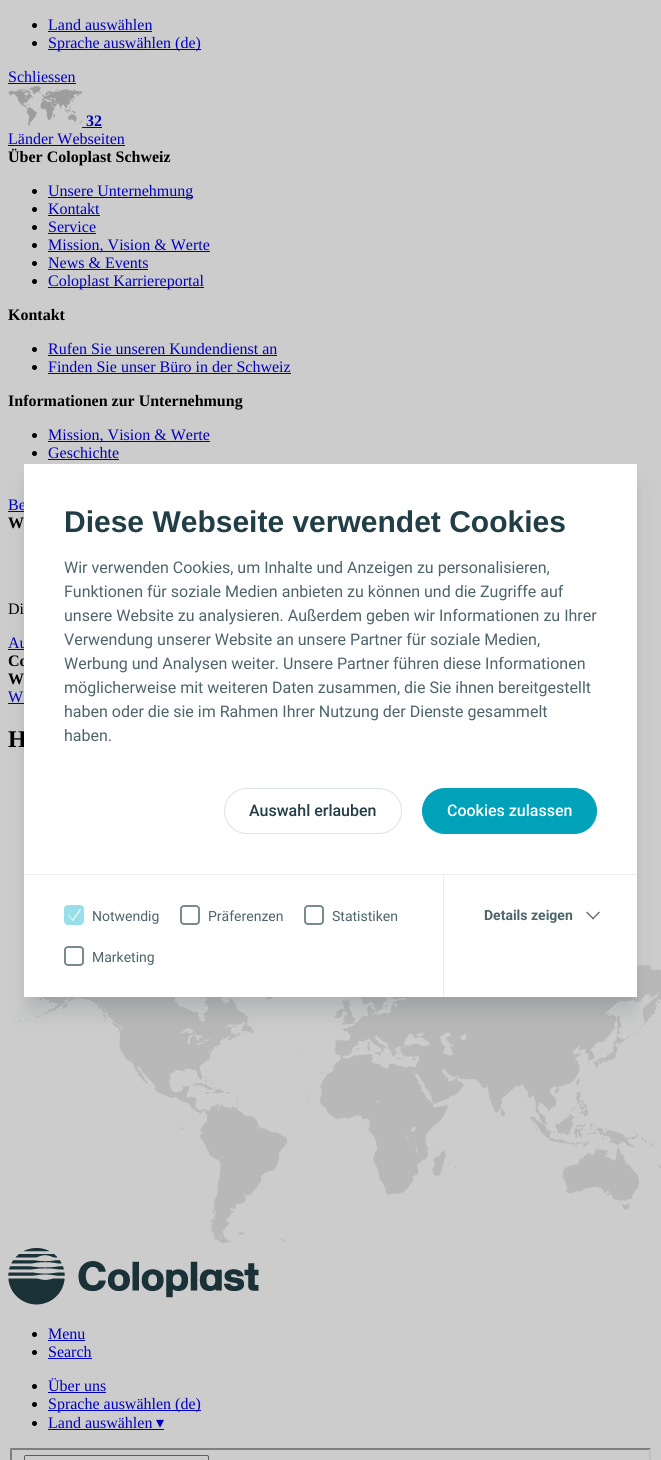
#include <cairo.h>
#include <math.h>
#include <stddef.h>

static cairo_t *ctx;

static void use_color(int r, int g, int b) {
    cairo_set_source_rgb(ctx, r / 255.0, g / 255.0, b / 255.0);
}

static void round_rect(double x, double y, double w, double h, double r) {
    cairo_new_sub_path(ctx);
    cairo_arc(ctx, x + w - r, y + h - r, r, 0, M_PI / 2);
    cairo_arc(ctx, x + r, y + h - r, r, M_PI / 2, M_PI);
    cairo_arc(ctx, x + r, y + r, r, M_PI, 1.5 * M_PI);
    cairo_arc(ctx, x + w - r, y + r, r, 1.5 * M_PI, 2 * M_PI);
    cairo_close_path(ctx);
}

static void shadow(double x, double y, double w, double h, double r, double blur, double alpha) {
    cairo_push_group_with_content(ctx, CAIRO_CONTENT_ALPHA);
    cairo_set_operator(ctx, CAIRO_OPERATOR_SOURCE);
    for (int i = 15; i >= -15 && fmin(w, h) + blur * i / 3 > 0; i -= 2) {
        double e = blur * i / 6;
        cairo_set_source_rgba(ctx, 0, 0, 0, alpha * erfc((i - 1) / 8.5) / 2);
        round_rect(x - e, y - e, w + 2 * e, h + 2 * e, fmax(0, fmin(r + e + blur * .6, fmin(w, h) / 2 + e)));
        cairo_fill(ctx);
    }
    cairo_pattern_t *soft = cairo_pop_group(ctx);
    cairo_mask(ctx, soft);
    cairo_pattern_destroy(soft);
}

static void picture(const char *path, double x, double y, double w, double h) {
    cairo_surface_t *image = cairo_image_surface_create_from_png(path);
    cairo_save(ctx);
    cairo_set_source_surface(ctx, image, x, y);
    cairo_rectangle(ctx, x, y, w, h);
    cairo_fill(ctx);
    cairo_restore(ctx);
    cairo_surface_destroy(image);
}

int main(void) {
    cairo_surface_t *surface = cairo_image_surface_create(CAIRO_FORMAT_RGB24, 661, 1460);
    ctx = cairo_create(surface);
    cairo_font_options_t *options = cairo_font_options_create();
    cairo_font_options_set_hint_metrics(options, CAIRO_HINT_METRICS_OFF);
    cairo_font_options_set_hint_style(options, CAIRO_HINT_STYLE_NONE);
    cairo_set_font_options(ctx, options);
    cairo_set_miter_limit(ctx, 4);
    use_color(204, 204, 204);
    cairo_paint(ctx);
    use_color(0, 0, 0);
    cairo_arc(ctx, 34.5, 25.5, 2.5, 0, 2 * M_PI);
    cairo_fill(ctx);
    cairo_select_font_face(ctx, "Liberation Serif", CAIRO_FONT_SLANT_NORMAL, CAIRO_FONT_WEIGHT_NORMAL);
    cairo_set_font_size(ctx, 16);
    use_color(0, 0, 190);
    cairo_move_to(ctx, 48, 30);
    cairo_show_text(ctx, "Land auswählen");
    cairo_rectangle(ctx, 48, 31, 104, 1);
    cairo_fill(ctx);
    use_color(0, 0, 0);
    cairo_arc(ctx, 34.5, 43.5, 2.5, 0, 2 * M_PI);
    cairo_fill(ctx);
    use_color(0, 0, 190);
    cairo_rectangle(ctx, 48, 49, 153, 1);
    cairo_fill(ctx);
    cairo_move_to(ctx, 48, 48);
    cairo_show_text(ctx, "Sprache auswählen (de)");
    cairo_move_to(ctx, 8, 82);
    cairo_show_text(ctx, "Schliessen");
    cairo_rectangle(ctx, 8, 83, 68, 1);
    cairo_fill(ctx);
    picture("img1.png", 8, 86, 74, 40);
    cairo_select_font_face(ctx, "Liberation Serif", CAIRO_FONT_SLANT_NORMAL, CAIRO_FONT_WEIGHT_BOLD);
    cairo_move_to(ctx, 86, 126);
    cairo_show_text(ctx, "32");
    cairo_rectangle(ctx, 82, 127, 20, 1);
    cairo_fill(ctx);
    cairo_select_font_face(ctx, "Liberation Serif", CAIRO_FONT_SLANT_NORMAL, CAIRO_FONT_WEIGHT_NORMAL);
    cairo_move_to(ctx, 8, 144);
    cairo_show_text(ctx, "Länder Webseiten");
    cairo_rectangle(ctx, 8, 145, 117, 1);
    cairo_fill(ctx);
    cairo_select_font_face(ctx, "Liberation Serif", CAIRO_FONT_SLANT_NORMAL, CAIRO_FONT_WEIGHT_BOLD);
    use_color(0, 0, 0);
    cairo_move_to(ctx, 8, 162);
    cairo_show_text(ctx, "Über Coloplast Schweiz");
    cairo_new_path(ctx);
    cairo_arc(ctx, 34.5, 191.5, 2.5, 0, 2 * M_PI);
    cairo_fill(ctx);
    use_color(0, 0, 190);
    cairo_rectangle(ctx, 48, 197, 145, 1);
    cairo_fill(ctx);
    cairo_select_font_face(ctx, "Liberation Serif", CAIRO_FONT_SLANT_NORMAL, CAIRO_FONT_WEIGHT_NORMAL);
    cairo_move_to(ctx, 48, 196);
    cairo_show_text(ctx, "Unsere Unternehmung");
    use_color(0, 0, 0);
    cairo_new_path(ctx);
    cairo_arc(ctx, 34.5, 209.5, 2.5, 0, 2 * M_PI);
    cairo_fill(ctx);
    use_color(0, 0, 190);
    cairo_move_to(ctx, 48, 214);
    cairo_show_text(ctx, "Kontakt");
    cairo_rectangle(ctx, 48, 215, 52, 1);
    cairo_fill(ctx);
    use_color(0, 0, 0);
    cairo_arc(ctx, 34.5, 227.5, 2.5, 0, 2 * M_PI);
    cairo_fill(ctx);
    use_color(0, 0, 190);
    cairo_move_to(ctx, 48, 232);
    cairo_show_text(ctx, "Service");
    cairo_rectangle(ctx, 48, 233, 48, 1);
    cairo_fill(ctx);
    use_color(0, 0, 0);
    cairo_arc(ctx, 34.5, 245.5, 2.5, 0, 2 * M_PI);
    cairo_fill(ctx);
    use_color(0, 0, 190);
    cairo_rectangle(ctx, 48, 251, 162, 1);
    cairo_fill(ctx);
    cairo_move_to(ctx, 48, 250);
    cairo_show_text(ctx, "Mission, Vision & Werte");
    use_color(0, 0, 0);
    cairo_new_path(ctx);
    cairo_arc(ctx, 34.5, 263.5, 2.5, 0, 2 * M_PI);
    cairo_fill(ctx);
    use_color(0, 0, 190);
    cairo_move_to(ctx, 48, 268);
    cairo_show_text(ctx, "News & Events");
    cairo_rectangle(ctx, 48, 269, 100, 1);
    cairo_fill(ctx);
    use_color(0, 0, 0);
    cairo_arc(ctx, 34.5, 281.5, 2.5, 0, 2 * M_PI);
    cairo_fill(ctx);
    use_color(0, 0, 190);
    cairo_rectangle(ctx, 48, 287, 156, 1);
    cairo_fill(ctx);
    cairo_move_to(ctx, 48, 286);
    cairo_show_text(ctx, "Coloplast Karriereportal");
    cairo_select_font_face(ctx, "Liberation Serif", CAIRO_FONT_SLANT_NORMAL, CAIRO_FONT_WEIGHT_BOLD);
    use_color(0, 0, 0);
    cairo_move_to(ctx, 8, 320);
    cairo_show_text(ctx, "Kontakt");
    cairo_new_path(ctx);
    cairo_arc(ctx, 34.5, 349.5, 2.5, 0, 2 * M_PI);
    cairo_fill(ctx);
    cairo_select_font_face(ctx, "Liberation Serif", CAIRO_FONT_SLANT_NORMAL, CAIRO_FONT_WEIGHT_NORMAL);
    use_color(0, 0, 190);
    cairo_move_to(ctx, 48, 354);
    cairo_show_text(ctx, "Rufen Sie unseren Kundendienst an");
    cairo_rectangle(ctx, 48, 355, 229, 1);
    cairo_fill(ctx);
    use_color(0, 0, 0);
    cairo_arc(ctx, 34.5, 367.5, 2.5, 0, 2 * M_PI);
    cairo_fill(ctx);
    use_color(0, 0, 190);
    cairo_move_to(ctx, 48, 372);
    cairo_show_text(ctx, "Finden Sie unser Büro in der Schweiz");
    cairo_rectangle(ctx, 48, 373, 243, 1);
    cairo_fill(ctx);
    cairo_select_font_face(ctx, "Liberation Serif", CAIRO_FONT_SLANT_NORMAL, CAIRO_FONT_WEIGHT_BOLD);
    use_color(0, 0, 0);
    cairo_move_to(ctx, 8, 406);
    cairo_show_text(ctx, "Informationen zur Unternehmung");
    cairo_new_path(ctx);
    cairo_arc(ctx, 34.5, 435.5, 2.5, 0, 2 * M_PI);
    cairo_fill(ctx);
    use_color(0, 0, 190);
    cairo_rectangle(ctx, 48, 441, 162, 1);
    cairo_fill(ctx);
    cairo_select_font_face(ctx, "Liberation Serif", CAIRO_FONT_SLANT_NORMAL, CAIRO_FONT_WEIGHT_NORMAL);
    cairo_move_to(ctx, 48, 440);
    cairo_show_text(ctx, "Mission, Vision & Werte");
    use_color(0, 0, 0);
    cairo_new_path(ctx);
    cairo_arc(ctx, 34.5, 453.5, 2.5, 0, 2 * M_PI);
    cairo_fill(ctx);
    use_color(0, 0, 190);
    cairo_move_to(ctx, 48, 458);
    cairo_show_text(ctx, "Geschichte");
    cairo_rectangle(ctx, 48, 459, 71, 1);
    cairo_fill(ctx);
    cairo_move_to(ctx, 8, 510);
    cairo_show_text(ctx, "Be");
    cairo_rectangle(ctx, 8, 511, 16, 1);
    cairo_fill(ctx);
    cairo_select_font_face(ctx, "Liberation Serif", CAIRO_FONT_SLANT_NORMAL, CAIRO_FONT_WEIGHT_BOLD);
    use_color(0, 0, 0);
    cairo_move_to(ctx, 8, 528);
    cairo_show_text(ctx, "W");
    cairo_select_font_face(ctx, "Liberation Serif", CAIRO_FONT_SLANT_NORMAL, CAIRO_FONT_WEIGHT_NORMAL);
    cairo_move_to(ctx, 8, 614);
    cairo_show_text(ctx, "Di");
    use_color(0, 0, 190);
    cairo_move_to(ctx, 8, 648);
    cairo_show_text(ctx, "Au");
    cairo_rectangle(ctx, 8, 649, 16, 1);
    cairo_fill(ctx);
    cairo_select_font_face(ctx, "Liberation Serif", CAIRO_FONT_SLANT_NORMAL, CAIRO_FONT_WEIGHT_BOLD);
    use_color(0, 0, 0);
    cairo_move_to(ctx, 8, 666);
    cairo_show_text(ctx, "Co");
    cairo_move_to(ctx, 8, 684);
    cairo_show_text(ctx, "W");
    cairo_select_font_face(ctx, "Liberation Serif", CAIRO_FONT_SLANT_NORMAL, CAIRO_FONT_WEIGHT_NORMAL);
    use_color(0, 0, 190);
    cairo_move_to(ctx, 8, 702);
    cairo_show_text(ctx, "W");
    cairo_rectangle(ctx, 8, 703, 16, 1);
    cairo_fill(ctx);
    cairo_select_font_face(ctx, "Liberation Serif", CAIRO_FONT_SLANT_NORMAL, CAIRO_FONT_WEIGHT_BOLD);
    cairo_set_font_size(ctx, 24);
    use_color(0, 0, 0);
    cairo_move_to(ctx, 8, 747);
    cairo_show_text(ctx, "H");
    picture("img2.png", 10, 965, 651, 279);
    picture("img3.png", 8, 1248, 251, 57);
    cairo_arc(ctx, 34.5, 1334.5, 2.5, 0, 2 * M_PI);
    cairo_fill(ctx);
    cairo_select_font_face(ctx, "Liberation Serif", CAIRO_FONT_SLANT_NORMAL, CAIRO_FONT_WEIGHT_NORMAL);
    cairo_set_font_size(ctx, 16);
    use_color(0, 0, 190);
    cairo_move_to(ctx, 48, 1339);
    cairo_show_text(ctx, "Menu");
    cairo_rectangle(ctx, 48, 1340, 37, 1);
    cairo_fill(ctx);
    use_color(0, 0, 0);
    cairo_arc(ctx, 34.5, 1352.5, 2.5, 0, 2 * M_PI);
    cairo_fill(ctx);
    use_color(0, 0, 190);
    cairo_move_to(ctx, 48, 1357);
    cairo_show_text(ctx, "Search");
    cairo_rectangle(ctx, 48, 1358, 44, 1);
    cairo_fill(ctx);
    use_color(0, 0, 0);
    cairo_arc(ctx, 34.5, 1386.5, 2.5, 0, 2 * M_PI);
    cairo_fill(ctx);
    use_color(0, 0, 190);
    cairo_move_to(ctx, 48, 1391);
    cairo_show_text(ctx, "Über uns");
    cairo_rectangle(ctx, 48, 1392, 58, 1);
    cairo_fill(ctx);
    use_color(0, 0, 0);
    cairo_arc(ctx, 34.5, 1404.5, 2.5, 0, 2 * M_PI);
    cairo_fill(ctx);
    use_color(0, 0, 190);
    cairo_rectangle(ctx, 48, 1410, 153, 1);
    cairo_fill(ctx);
    cairo_move_to(ctx, 48, 1409);
    cairo_show_text(ctx, "Sprache auswählen (de)");
    use_color(0, 0, 0);
    cairo_new_path(ctx);
    cairo_arc(ctx, 34.5, 1423.5, 2.5, 0, 2 * M_PI);
    cairo_fill(ctx);
    use_color(0, 0, 190);
    cairo_move_to(ctx, 48, 1428);
    cairo_show_text(ctx, "Land auswählen");
    cairo_select_font_face(ctx, "DejaVu Sans", CAIRO_FONT_SLANT_NORMAL, CAIRO_FONT_WEIGHT_NORMAL);
    cairo_move_to(ctx, 156, 1428);
    cairo_show_text(ctx, "▾");
    cairo_rectangle(ctx, 48, 1429, 116, 1);
    cairo_fill(ctx);
    use_color(127, 127, 127);
    cairo_new_path(ctx);
    cairo_move_to(ctx, 10, 1448);
    cairo_line_to(ctx, 651, 1448);
    cairo_line_to(ctx, 649, 1450);
    cairo_line_to(ctx, 12, 1450);
    cairo_close_path(ctx);
    cairo_fill(ctx);
    use_color(191, 191, 191);
    cairo_new_path(ctx);
    cairo_move_to(ctx, 651, 1448);
    cairo_line_to(ctx, 651, 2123);
    cairo_line_to(ctx, 649, 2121);
    cairo_line_to(ctx, 649, 1450);
    cairo_close_path(ctx);
    cairo_fill(ctx);
    use_color(127, 127, 127);
    cairo_new_path(ctx);
    cairo_move_to(ctx, 10, 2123);
    cairo_line_to(ctx, 10, 1448);
    cairo_line_to(ctx, 12, 1450);
    cairo_line_to(ctx, 12, 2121);
    cairo_close_path(ctx);
    cairo_fill(ctx);
    round_rect(24.5, 1455.5, 184, 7, 1.5);
    use_color(94, 94, 94);
    cairo_set_line_width(ctx, 1);
    cairo_stroke(ctx);
    use_color(21, 39, 45);
    shadow(28, 488, 605, 525, 0, 12, 0.12);
    shadow(28, 476, 605, 525, 0, 6, 0.08);
    use_color(255, 255, 255);
    cairo_rectangle(ctx, 24, 464, 613, 533);
    cairo_fill(ctx);
    cairo_select_font_face(ctx, "Liberation Sans", CAIRO_FONT_SLANT_NORMAL, CAIRO_FONT_WEIGHT_BOLD);
    cairo_set_font_size(ctx, 30);
    use_color(33, 61, 70);
    cairo_move_to(ctx, 64, 532);
    cairo_show_text(ctx, "Diese Webseite verwendet Cookies");
    cairo_select_font_face(ctx, "Roboto", CAIRO_FONT_SLANT_NORMAL, CAIRO_FONT_WEIGHT_NORMAL);
    cairo_set_font_size(ctx, 16);
    use_color(77, 100, 107);
    cairo_move_to(ctx, 64, 573);
    cairo_show_text(ctx, "Wir verwenden Cookies, um Inhalte und Anzeigen zu personalisieren,");
    cairo_move_to(ctx, 64, 597);
    cairo_show_text(ctx, "Funktionen für soziale Medien anbieten zu können und die Zugriffe auf");
    cairo_move_to(ctx, 64, 621);
    cairo_show_text(ctx, "unsere Website zu analysieren. Außerdem geben wir Informationen zu Ihrer");
    cairo_move_to(ctx, 64, 645);
    cairo_show_text(ctx, "Verwendung unserer Website an unsere Partner für soziale Medien,");
    cairo_move_to(ctx, 64, 669);
    cairo_show_text(ctx, "Werbung und Analysen weiter. Unsere Partner führen diese Informationen");
    cairo_move_to(ctx, 64, 693);
    cairo_show_text(ctx, "möglicherweise mit weiteren Daten zusammen, die Sie ihnen bereitgestellt");
    cairo_move_to(ctx, 64, 717);
    cairo_show_text(ctx, "haben oder die sie im Rahmen Ihrer Nutzung der Dienste gesammelt");
    cairo_move_to(ctx, 64, 741);
    cairo_show_text(ctx, "haben.");
    round_rect(224.5, 788.5, 177, 45, 22.5);
    use_color(221, 226, 228);
    cairo_stroke(ctx);
    cairo_select_font_face(ctx, "Roboto Medium", CAIRO_FONT_SLANT_NORMAL, CAIRO_FONT_WEIGHT_NORMAL);
    use_color(33, 61, 70);
    cairo_move_to(ctx, 249, 816);
    cairo_show_text(ctx, "Auswahl erlauben");
    use_color(0, 162, 186);
    round_rect(422.5, 788.5, 174, 45, 22.5);
    cairo_fill_preserve(ctx);
    cairo_stroke(ctx);
    use_color(255, 255, 255);
    cairo_move_to(ctx, 447, 816);
    cairo_show_text(ctx, "Cookies zulassen");
    use_color(237, 237, 237);
    cairo_rectangle(ctx, 24, 874, 613, 1);
    cairo_fill(ctx);
    use_color(153, 223, 234);
    round_rect(65, 906, 18, 18, 3);
    cairo_fill_preserve(ctx);
    cairo_set_line_width(ctx, 2);
    cairo_stroke(ctx);
    use_color(255, 255, 255);
    cairo_new_path(ctx);
    cairo_move_to(ctx, 80, 909);
    cairo_line_to(ctx, 81, 909.5);
    cairo_line_to(ctx, 73, 921);
    cairo_line_to(ctx, 72, 920.5);
    cairo_close_path(ctx);
    cairo_fill(ctx);
    cairo_new_path(ctx);
    cairo_move_to(ctx, 68, 915);
    cairo_line_to(ctx, 68.5, 914.5);
    cairo_line_to(ctx, 73, 920);
    cairo_line_to(ctx, 72.5, 920.5);
    cairo_close_path(ctx);
    cairo_fill(ctx);
    cairo_select_font_face(ctx, "Roboto", CAIRO_FONT_SLANT_NORMAL, CAIRO_FONT_WEIGHT_NORMAL);
    cairo_set_font_size(ctx, 14);
    use_color(77, 100, 107);
    cairo_move_to(ctx, 92, 921);
    cairo_show_text(ctx, "Notwendig");
    round_rect(181, 906, 18, 18, 3);
    use_color(122, 139, 144);
    cairo_stroke(ctx);
    use_color(77, 100, 107);
    cairo_move_to(ctx, 208, 921);
    cairo_show_text(ctx, "Präferenzen");
    round_rect(305, 906, 18, 18, 3);
    use_color(122, 139, 144);
    cairo_stroke(ctx);
    use_color(77, 100, 107);
    cairo_move_to(ctx, 332, 921);
    cairo_show_text(ctx, "Statistiken");
    round_rect(65, 947, 18, 18, 3);
    use_color(122, 139, 144);
    cairo_stroke(ctx);
    use_color(77, 100, 107);
    cairo_move_to(ctx, 92, 962);
    cairo_show_text(ctx, "Marketing");
    use_color(237, 237, 237);
    cairo_rectangle(ctx, 443, 875, 1, 122);
    cairo_fill(ctx);
    cairo_select_font_face(ctx, "Roboto", CAIRO_FONT_SLANT_NORMAL, CAIRO_FONT_WEIGHT_BOLD);
    use_color(77, 100, 107);
    cairo_move_to(ctx, 484, 920);
    cairo_show_text(ctx, "Details zeigen");
    use_color(108, 111, 112);
    cairo_new_path(ctx);
    cairo_move_to(ctx, 586, 912.5);
    cairo_line_to(ctx, 587, 911.5);
    cairo_line_to(ctx, 594, 918.5);
    cairo_line_to(ctx, 593, 919.5);
    cairo_close_path(ctx);
    cairo_fill(ctx);
    cairo_new_path(ctx);
    cairo_move_to(ctx, 599, 911.5);
    cairo_line_to(ctx, 600, 912.5);
    cairo_line_to(ctx, 593, 919.5);
    cairo_line_to(ctx, 592, 918.5);
    cairo_close_path(ctx);
    cairo_fill(ctx);
    cairo_surface_write_to_png(surface, "result.png");
    cairo_font_options_destroy(options);
    cairo_destroy(ctx);
    cairo_surface_destroy(surface);
    return 0;
}
